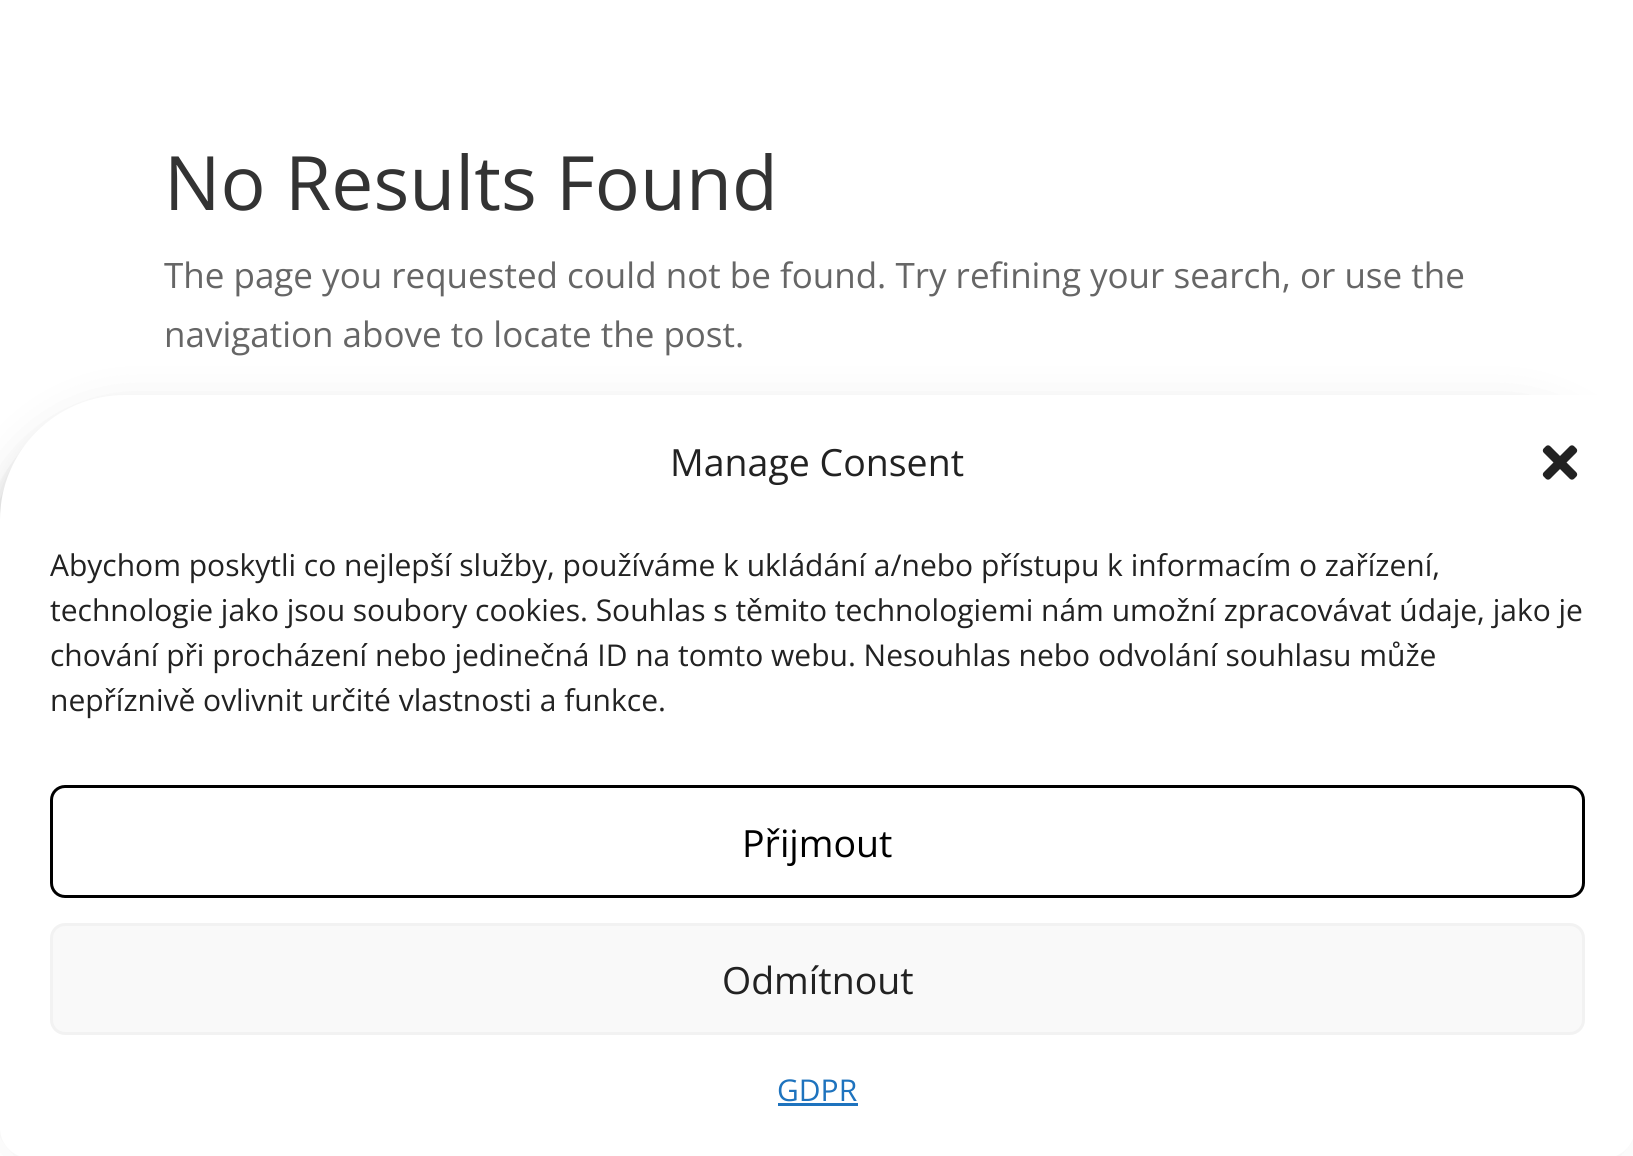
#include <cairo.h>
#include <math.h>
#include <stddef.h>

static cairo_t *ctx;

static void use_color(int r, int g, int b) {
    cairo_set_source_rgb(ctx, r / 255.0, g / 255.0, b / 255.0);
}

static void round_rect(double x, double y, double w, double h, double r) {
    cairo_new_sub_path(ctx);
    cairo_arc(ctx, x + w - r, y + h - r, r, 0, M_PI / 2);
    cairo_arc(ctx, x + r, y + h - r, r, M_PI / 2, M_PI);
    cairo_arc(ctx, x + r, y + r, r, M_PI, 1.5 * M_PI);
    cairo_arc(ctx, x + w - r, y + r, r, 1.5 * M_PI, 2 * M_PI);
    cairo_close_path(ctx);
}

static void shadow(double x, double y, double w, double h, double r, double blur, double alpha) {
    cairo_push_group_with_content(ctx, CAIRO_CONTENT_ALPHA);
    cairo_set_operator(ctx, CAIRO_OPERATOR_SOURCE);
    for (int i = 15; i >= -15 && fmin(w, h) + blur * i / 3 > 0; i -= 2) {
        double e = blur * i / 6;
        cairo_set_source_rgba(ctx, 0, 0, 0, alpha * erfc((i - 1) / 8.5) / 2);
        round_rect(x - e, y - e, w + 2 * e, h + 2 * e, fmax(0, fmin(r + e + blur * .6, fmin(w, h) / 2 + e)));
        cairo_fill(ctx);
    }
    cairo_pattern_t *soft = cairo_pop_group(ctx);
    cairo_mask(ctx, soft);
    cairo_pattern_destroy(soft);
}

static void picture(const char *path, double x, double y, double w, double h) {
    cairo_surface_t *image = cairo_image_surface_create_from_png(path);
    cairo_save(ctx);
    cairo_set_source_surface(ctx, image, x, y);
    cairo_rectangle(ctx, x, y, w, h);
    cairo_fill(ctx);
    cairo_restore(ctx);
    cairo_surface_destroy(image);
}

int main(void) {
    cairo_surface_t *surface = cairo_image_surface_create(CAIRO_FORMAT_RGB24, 1633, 1156);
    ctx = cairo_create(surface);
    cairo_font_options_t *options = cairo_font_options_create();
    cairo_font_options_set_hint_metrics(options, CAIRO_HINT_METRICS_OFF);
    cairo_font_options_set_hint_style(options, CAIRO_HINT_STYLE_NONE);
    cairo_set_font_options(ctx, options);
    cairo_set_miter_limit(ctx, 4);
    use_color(255, 255, 255);
    cairo_paint(ctx);
    cairo_select_font_face(ctx, "Open Sans", CAIRO_FONT_SLANT_NORMAL, CAIRO_FONT_WEIGHT_NORMAL);
    cairo_set_font_size(ctx, 75);
    use_color(51, 51, 51);
    cairo_move_to(ctx, 164, 210);
    cairo_show_text(ctx, "No Results Found");
    cairo_set_font_size(ctx, 35);
    use_color(102, 102, 102);
    cairo_move_to(ctx, 164, 288);
    cairo_show_text(ctx, "The page you requested could not be found. Try refining your search, or use the");
    cairo_move_to(ctx, 164, 347);
    cairo_show_text(ctx, "navigation above to locate the post.");
    use_color(0, 0, 0);
    shadow(0, 410, 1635, 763, 125, 7.5, 0.23);
    shadow(0, 420, 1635, 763, 125, 25, 0.19);
    use_color(255, 255, 255);
    cairo_new_path(ctx);
    cairo_move_to(ctx, 125, 395);
    cairo_line_to(ctx, 1605, 395);
    cairo_curve_to(ctx, 1621.5, 395, 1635, 408.5, 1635, 425);
    cairo_line_to(ctx, 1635, 1128);
    cairo_curve_to(ctx, 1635, 1144.5, 1621.5, 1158, 1605, 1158);
    cairo_line_to(ctx, 30, 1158);
    cairo_curve_to(ctx, 13.5, 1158, 0, 1144.5, 0, 1128);
    cairo_line_to(ctx, 0, 520);
    cairo_curve_to(ctx, 0, 451, 56, 395, 125, 395);
    cairo_close_path(ctx);
    cairo_fill(ctx);
    cairo_set_font_size(ctx, 37.5);
    use_color(34, 34, 34);
    cairo_move_to(ctx, 670, 476);
    cairo_show_text(ctx, "Manage Consent");
    picture("img1.png", 1542, 445, 36, 35);
    cairo_set_font_size(ctx, 30);
    cairo_move_to(ctx, 50, 576);
    cairo_show_text(ctx, "Abychom poskytli co nejlepší služby, používáme k ukládání a/nebo přístupu k informacím o zařízení,");
    cairo_move_to(ctx, 50, 621);
    cairo_show_text(ctx, "technologie jako jsou soubory cookies. Souhlas s těmito technologiemi nám umožní zpracovávat údaje, jako je");
    cairo_move_to(ctx, 50, 666);
    cairo_show_text(ctx, "chování při procházení nebo jedinečná ID na tomto webu. Nesouhlas nebo odvolání souhlasu může");
    cairo_move_to(ctx, 50, 711);
    cairo_show_text(ctx, "nepříznivě ovlivnit určité vlastnosti a funkce.");
    round_rect(51.5, 786.5, 1532, 110, 13.5);
    use_color(0, 0, 0);
    cairo_set_line_width(ctx, 3);
    cairo_stroke(ctx);
    cairo_set_font_size(ctx, 37.5);
    cairo_move_to(ctx, 742, 857);
    cairo_show_text(ctx, "Přijmout");
    use_color(249, 249, 249);
    round_rect(51.5, 924.5, 1532, 109, 13.5);
    cairo_fill_preserve(ctx);
    use_color(242, 242, 242);
    cairo_stroke(ctx);
    use_color(34, 34, 34);
    cairo_move_to(ctx, 722, 994);
    cairo_show_text(ctx, "Odmítnout");
    cairo_set_font_size(ctx, 30);
    use_color(30, 115, 190);
    cairo_move_to(ctx, 777, 1101);
    cairo_show_text(ctx, "GDPR");
    cairo_rectangle(ctx, 778, 1103, 80, 3);
    cairo_fill(ctx);
    cairo_surface_write_to_png(surface, "result.png");
    cairo_font_options_destroy(options);
    cairo_destroy(ctx);
    cairo_surface_destroy(surface);
    return 0;
}
